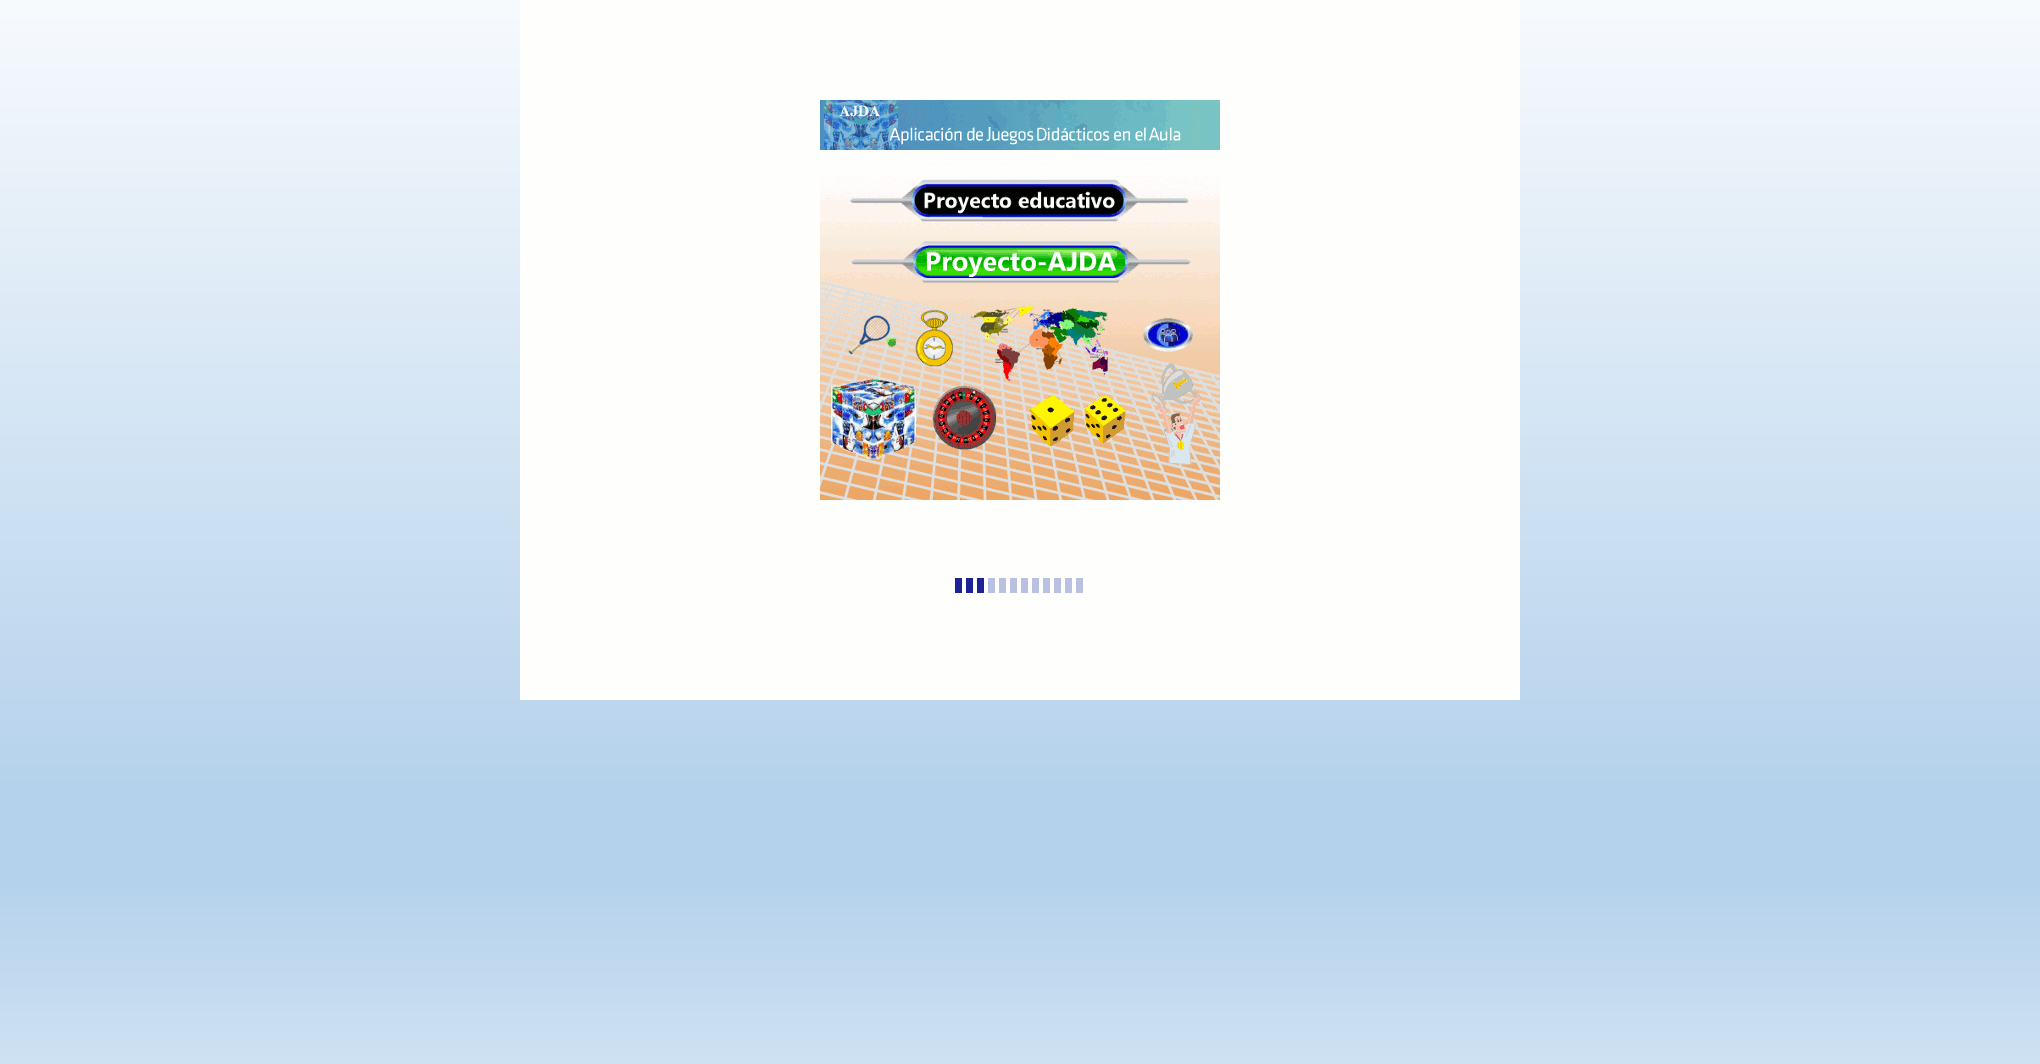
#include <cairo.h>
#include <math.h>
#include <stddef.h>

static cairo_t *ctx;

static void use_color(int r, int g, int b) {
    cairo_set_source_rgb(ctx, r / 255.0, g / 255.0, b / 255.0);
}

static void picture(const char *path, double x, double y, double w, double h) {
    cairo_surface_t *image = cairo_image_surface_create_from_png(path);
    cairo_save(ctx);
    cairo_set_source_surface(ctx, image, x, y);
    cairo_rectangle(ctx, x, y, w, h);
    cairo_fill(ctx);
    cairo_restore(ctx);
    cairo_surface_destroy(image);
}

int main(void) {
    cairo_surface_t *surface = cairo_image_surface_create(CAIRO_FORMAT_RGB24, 2040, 1064);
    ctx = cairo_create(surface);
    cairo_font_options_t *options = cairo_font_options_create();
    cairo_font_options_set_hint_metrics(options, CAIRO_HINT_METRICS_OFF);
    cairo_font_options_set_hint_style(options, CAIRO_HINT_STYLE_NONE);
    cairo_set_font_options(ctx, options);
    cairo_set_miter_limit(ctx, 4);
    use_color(255, 255, 255);
    cairo_paint(ctx);
    picture("img1.png", 0, 0, 2040, 1064);
    cairo_surface_write_to_png(surface, "result.png");
    cairo_font_options_destroy(options);
    cairo_destroy(ctx);
    cairo_surface_destroy(surface);
    return 0;
}
